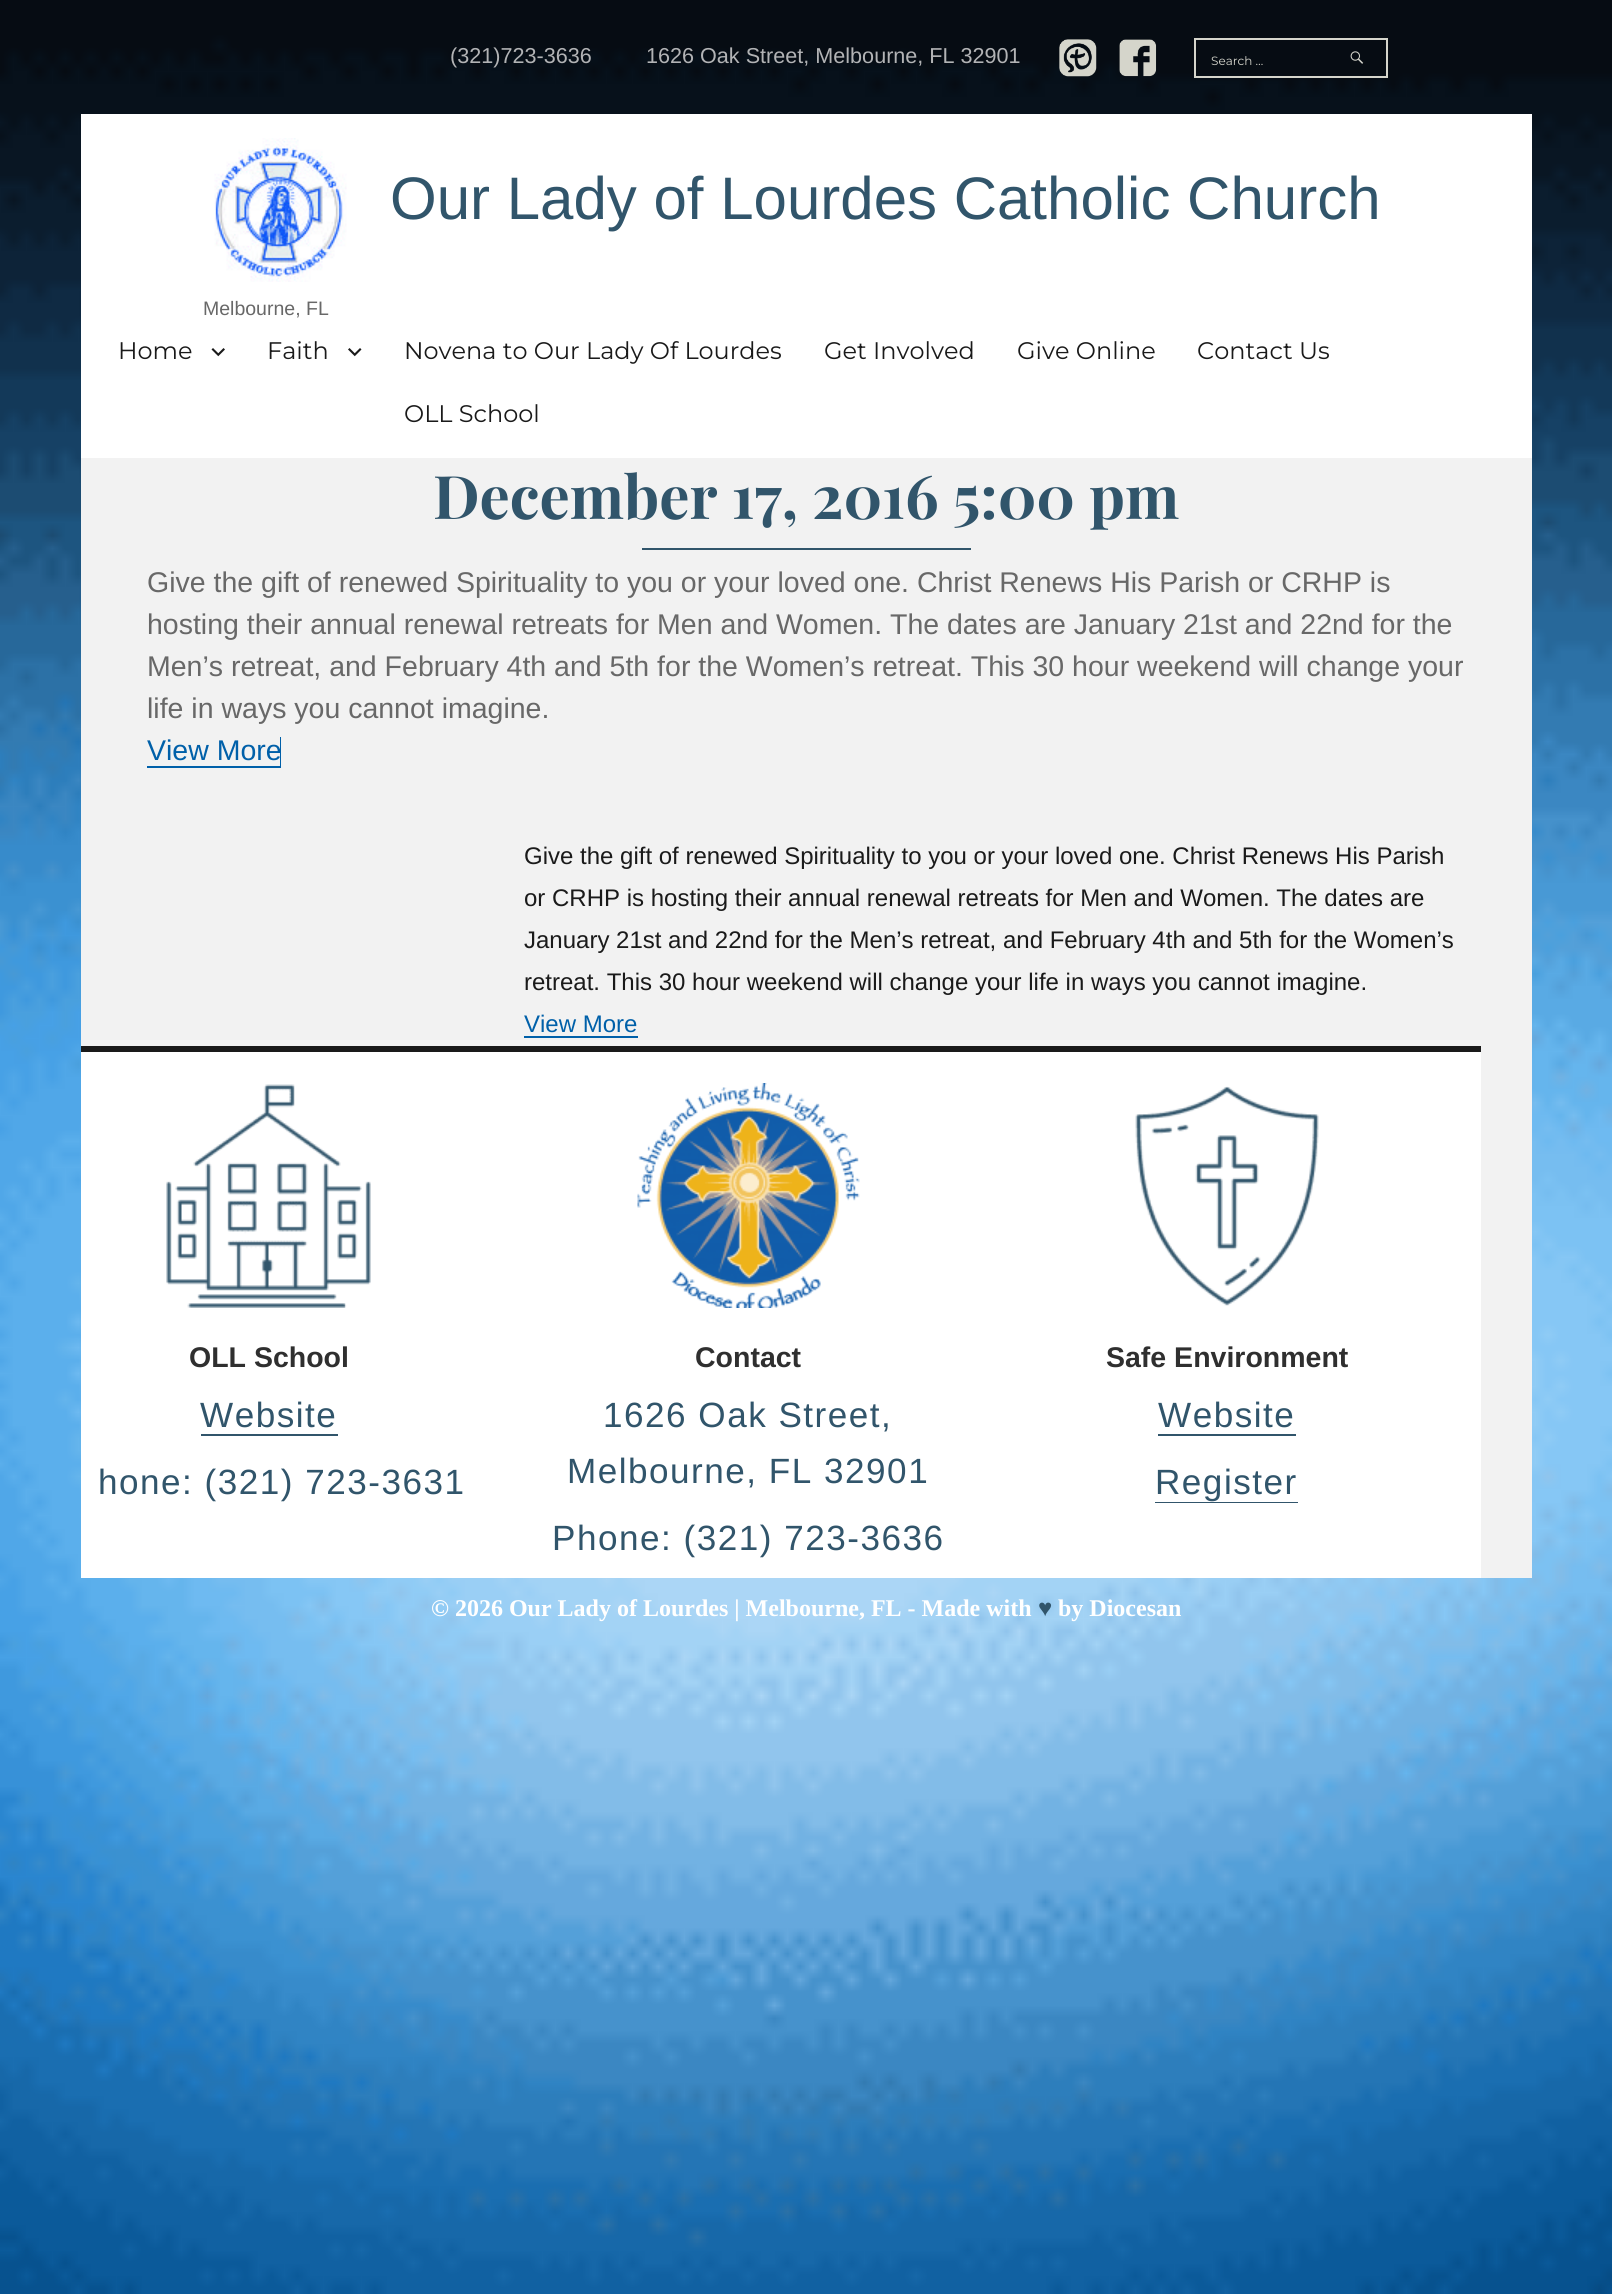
#include <cairo.h>
#include <math.h>
#include <stddef.h>

static cairo_t *ctx;

static void use_color(int r, int g, int b) {
    cairo_set_source_rgb(ctx, r / 255.0, g / 255.0, b / 255.0);
}

static void spaced_text(double x, double y, const char *s, double letter, double word) {
    cairo_move_to(ctx, x, y);
    while (*s) {
        char ch[5] = {0};
        int n = 0;
        do ch[n++] = *s++; while ((*s & 0xC0) == 0x80);
        cairo_show_text(ctx, ch);
        cairo_rel_move_to(ctx, letter + word * (*ch == ' '), 0);
    }
}

static void picture(const char *path, double x, double y, double w, double h) {
    cairo_surface_t *image = cairo_image_surface_create_from_png(path);
    cairo_save(ctx);
    cairo_set_source_surface(ctx, image, x, y);
    cairo_rectangle(ctx, x, y, w, h);
    cairo_fill(ctx);
    cairo_restore(ctx);
    cairo_surface_destroy(image);
}

int main(void) {
    cairo_surface_t *surface = cairo_image_surface_create(CAIRO_FORMAT_RGB24, 1612, 2294);
    ctx = cairo_create(surface);
    cairo_font_options_t *options = cairo_font_options_create();
    cairo_font_options_set_hint_metrics(options, CAIRO_HINT_METRICS_OFF);
    cairo_font_options_set_hint_style(options, CAIRO_HINT_STYLE_NONE);
    cairo_set_font_options(ctx, options);
    cairo_set_miter_limit(ctx, 4);
    use_color(255, 255, 255);
    cairo_paint(ctx);
    picture("img1.png", 0, 0, 1612, 2294);
    cairo_select_font_face(ctx, "Liberation Sans", CAIRO_FONT_SLANT_NORMAL, CAIRO_FONT_WEIGHT_NORMAL);
    cairo_set_font_size(ctx, 21.6);
    use_color(178, 179, 181);
    cairo_move_to(ctx, 450, 63);
    cairo_show_text(ctx, "(321)723-3636");
    cairo_move_to(ctx, 646, 63);
    cairo_show_text(ctx, "1626 Oak Street, Melbourne, FL 32901");
    picture("img2.png", 1059, 39, 38, 38);
    picture("img3.png", 1119, 39, 38, 38);
    cairo_rectangle(ctx, 1195, 39, 192, 38);
    use_color(213, 213, 204);
    cairo_stroke(ctx);
    cairo_select_font_face(ctx, "Montserrat Thin", CAIRO_FONT_SLANT_NORMAL, CAIRO_FONT_WEIGHT_NORMAL);
    cairo_set_font_size(ctx, 12);
    cairo_move_to(ctx, 1211, 65);
    cairo_show_text(ctx, "Search …");
    picture("img4.png", 1350, 51, 14, 13);
    use_color(242, 242, 242);
    cairo_rectangle(ctx, 81, 458, 1451, 1120);
    cairo_fill(ctx);
    use_color(255, 255, 255);
    cairo_rectangle(ctx, 81, 114, 1451, 344);
    cairo_fill(ctx);
    picture("img5.png", 214, 138, 133, 144);
    cairo_select_font_face(ctx, "Liberation Sans", CAIRO_FONT_SLANT_NORMAL, CAIRO_FONT_WEIGHT_NORMAL);
    cairo_set_font_size(ctx, 60);
    use_color(49, 85, 107);
    cairo_move_to(ctx, 390, 219);
    cairo_show_text(ctx, "Our Lady of Lourdes Catholic Church");
    cairo_set_font_size(ctx, 19.5);
    use_color(104, 104, 104);
    cairo_move_to(ctx, 203, 315);
    cairo_show_text(ctx, "Melbourne, FL");
    cairo_select_font_face(ctx, "Montserrat Thin", CAIRO_FONT_SLANT_NORMAL, CAIRO_FONT_WEIGHT_NORMAL);
    cairo_set_font_size(ctx, 24);
    use_color(26, 26, 26);
    cairo_move_to(ctx, 118, 359);
    cairo_show_text(ctx, "Home");
    picture("img6.png", 211, 348, 14, 9);
    cairo_move_to(ctx, 267, 359);
    cairo_show_text(ctx, "Faith");
    picture("img7.png", 348, 348, 14, 9);
    cairo_move_to(ctx, 404, 359);
    cairo_show_text(ctx, "Novena to Our Lady Of Lourdes");
    cairo_move_to(ctx, 824, 359);
    cairo_show_text(ctx, "Get Involved");
    cairo_move_to(ctx, 1017, 359);
    cairo_show_text(ctx, "Give Online");
    cairo_move_to(ctx, 1197, 359);
    cairo_show_text(ctx, "Contact Us");
    cairo_move_to(ctx, 404, 422);
    cairo_show_text(ctx, "OLL School");
    cairo_select_font_face(ctx, "Playfair Display", CAIRO_FONT_SLANT_NORMAL, CAIRO_FONT_WEIGHT_BOLD);
    cairo_set_font_size(ctx, 60);
    use_color(49, 85, 107);
    cairo_move_to(ctx, 433, 519);
    cairo_show_text(ctx, "December 17, 2016 5:00 pm");
    cairo_rectangle(ctx, 642, 548, 329, 2);
    cairo_fill(ctx);
    cairo_select_font_face(ctx, "Liberation Sans", CAIRO_FONT_SLANT_NORMAL, CAIRO_FONT_WEIGHT_NORMAL);
    cairo_set_font_size(ctx, 28.5);
    use_color(104, 104, 104);
    cairo_move_to(ctx, 147, 592);
    cairo_show_text(ctx, "Give the gift of renewed Spirituality to you or your loved one. Christ Renews His Parish or CRHP is");
    cairo_move_to(ctx, 147, 634);
    cairo_show_text(ctx, "hosting their annual renewal retreats for Men and Women. The dates are January 21st and 22nd for the");
    cairo_move_to(ctx, 147, 676);
    cairo_show_text(ctx, "Men’s retreat, and February 4th and 5th for the Women’s retreat. This 30 hour weekend will change your");
    cairo_move_to(ctx, 147, 718);
    cairo_show_text(ctx, "life in ways you cannot imagine.");
    use_color(0, 96, 169);
    cairo_new_path(ctx);
    cairo_move_to(ctx, 147, 766);
    cairo_line_to(ctx, 147, 768);
    cairo_line_to(ctx, 281, 768);
    cairo_line_to(ctx, 281, 737);
    cairo_line_to(ctx, 280, 737);
    cairo_line_to(ctx, 280, 766);
    cairo_close_path(ctx);
    cairo_fill(ctx);
    cairo_move_to(ctx, 147, 760);
    cairo_show_text(ctx, "View More");
    cairo_set_font_size(ctx, 24);
    use_color(26, 26, 26);
    cairo_move_to(ctx, 524, 864);
    cairo_show_text(ctx, "Give the gift of renewed Spirituality to you or your loved one. Christ Renews His Parish");
    cairo_move_to(ctx, 524, 906);
    cairo_show_text(ctx, "or CRHP is hosting their annual renewal retreats for Men and Women. The dates are");
    cairo_move_to(ctx, 524, 948);
    cairo_show_text(ctx, "January 21st and 22nd for the Men’s retreat, and February 4th and 5th for the Women’s");
    cairo_move_to(ctx, 524, 990);
    cairo_show_text(ctx, "retreat. This 30 hour weekend will change your life in ways you cannot imagine.");
    use_color(0, 96, 169);
    cairo_move_to(ctx, 524, 1032);
    cairo_show_text(ctx, "View More");
    cairo_new_path(ctx);
    cairo_move_to(ctx, 524, 1036);
    cairo_line_to(ctx, 524, 1038);
    cairo_line_to(ctx, 638, 1038);
    cairo_line_to(ctx, 638, 1013);
    cairo_line_to(ctx, 638, 1036);
    cairo_close_path(ctx);
    cairo_fill(ctx);
    use_color(255, 255, 255);
    cairo_rectangle(ctx, 81, 1052, 1400, 526);
    cairo_fill(ctx);
    use_color(26, 26, 26);
    cairo_rectangle(ctx, 81, 1046, 1400, 6);
    cairo_fill(ctx);
    picture("img8.png", 166, 1084, 205, 224);
    cairo_select_font_face(ctx, "Liberation Sans", CAIRO_FONT_SLANT_NORMAL, CAIRO_FONT_WEIGHT_BOLD);
    cairo_set_font_size(ctx, 28.5);
    use_color(47, 47, 47);
    cairo_move_to(ctx, 189, 1367);
    cairo_show_text(ctx, "OLL School");
    cairo_select_font_face(ctx, "Liberation Sans", CAIRO_FONT_SLANT_NORMAL, CAIRO_FONT_WEIGHT_NORMAL);
    cairo_set_font_size(ctx, 35.1);
    use_color(49, 85, 107);
    spaced_text(200, 1427, "Website", 1.5, 0);
    cairo_new_path(ctx);
    cairo_move_to(ctx, 201, 1434);
    cairo_line_to(ctx, 201, 1436);
    cairo_line_to(ctx, 338, 1436);
    cairo_line_to(ctx, 338, 1397);
    cairo_line_to(ctx, 338, 1434);
    cairo_close_path(ctx);
    cairo_fill(ctx);
    spaced_text(98, 1494, "hone: (321) 723-3631", 1.5, 0);
    picture("img9.png", 637, 1083, 223, 225);
    cairo_select_font_face(ctx, "Liberation Sans", CAIRO_FONT_SLANT_NORMAL, CAIRO_FONT_WEIGHT_BOLD);
    cairo_set_font_size(ctx, 28.5);
    use_color(47, 47, 47);
    cairo_move_to(ctx, 695, 1367);
    cairo_show_text(ctx, "Contact");
    cairo_select_font_face(ctx, "Liberation Sans", CAIRO_FONT_SLANT_NORMAL, CAIRO_FONT_WEIGHT_NORMAL);
    cairo_set_font_size(ctx, 35.1);
    use_color(49, 85, 107);
    spaced_text(603, 1427, "1626 Oak Street,", 1.5, 0);
    spaced_text(567, 1483, "Melbourne, FL 32901", 1.5, 0);
    spaced_text(552, 1550, "Phone: (321) 723-3636", 1.5, 0);
    picture("img10.png", 1135, 1086, 184, 220);
    cairo_select_font_face(ctx, "Liberation Sans", CAIRO_FONT_SLANT_NORMAL, CAIRO_FONT_WEIGHT_BOLD);
    cairo_set_font_size(ctx, 28.5);
    use_color(47, 47, 47);
    cairo_move_to(ctx, 1106, 1367);
    cairo_show_text(ctx, "Safe Environment");
    cairo_select_font_face(ctx, "Liberation Sans", CAIRO_FONT_SLANT_NORMAL, CAIRO_FONT_WEIGHT_NORMAL);
    cairo_set_font_size(ctx, 35.1);
    use_color(49, 85, 107);
    spaced_text(1158, 1427, "Website", 1.5, 0);
    cairo_rectangle(ctx, 1158, 1434, 138, 2);
    cairo_fill(ctx);
    spaced_text(1155, 1494, "Register", 1.5, 0);
    cairo_new_path(ctx);
    cairo_move_to(ctx, 1155, 1502);
    cairo_line_to(ctx, 1155, 1503);
    cairo_line_to(ctx, 1298, 1503);
    cairo_line_to(ctx, 1298, 1464);
    cairo_line_to(ctx, 1298, 1502);
    cairo_close_path(ctx);
    cairo_fill(ctx);
    cairo_select_font_face(ctx, "Liberation Serif", CAIRO_FONT_SLANT_NORMAL, CAIRO_FONT_WEIGHT_BOLD);
    cairo_set_font_size(ctx, 24);
    use_color(255, 255, 255);
    cairo_move_to(ctx, 431, 1616);
    cairo_show_text(ctx, "© 2026 Our Lady of Lourdes | Melbourne, FL - Made with");
    use_color(49, 85, 107);
    cairo_move_to(ctx, 1038, 1616);
    cairo_show_text(ctx, "♥");
    use_color(255, 255, 255);
    cairo_move_to(ctx, 1058, 1616);
    cairo_show_text(ctx, "by Diocesan");
    cairo_surface_write_to_png(surface, "result.png");
    cairo_font_options_destroy(options);
    cairo_destroy(ctx);
    cairo_surface_destroy(surface);
    return 0;
}
